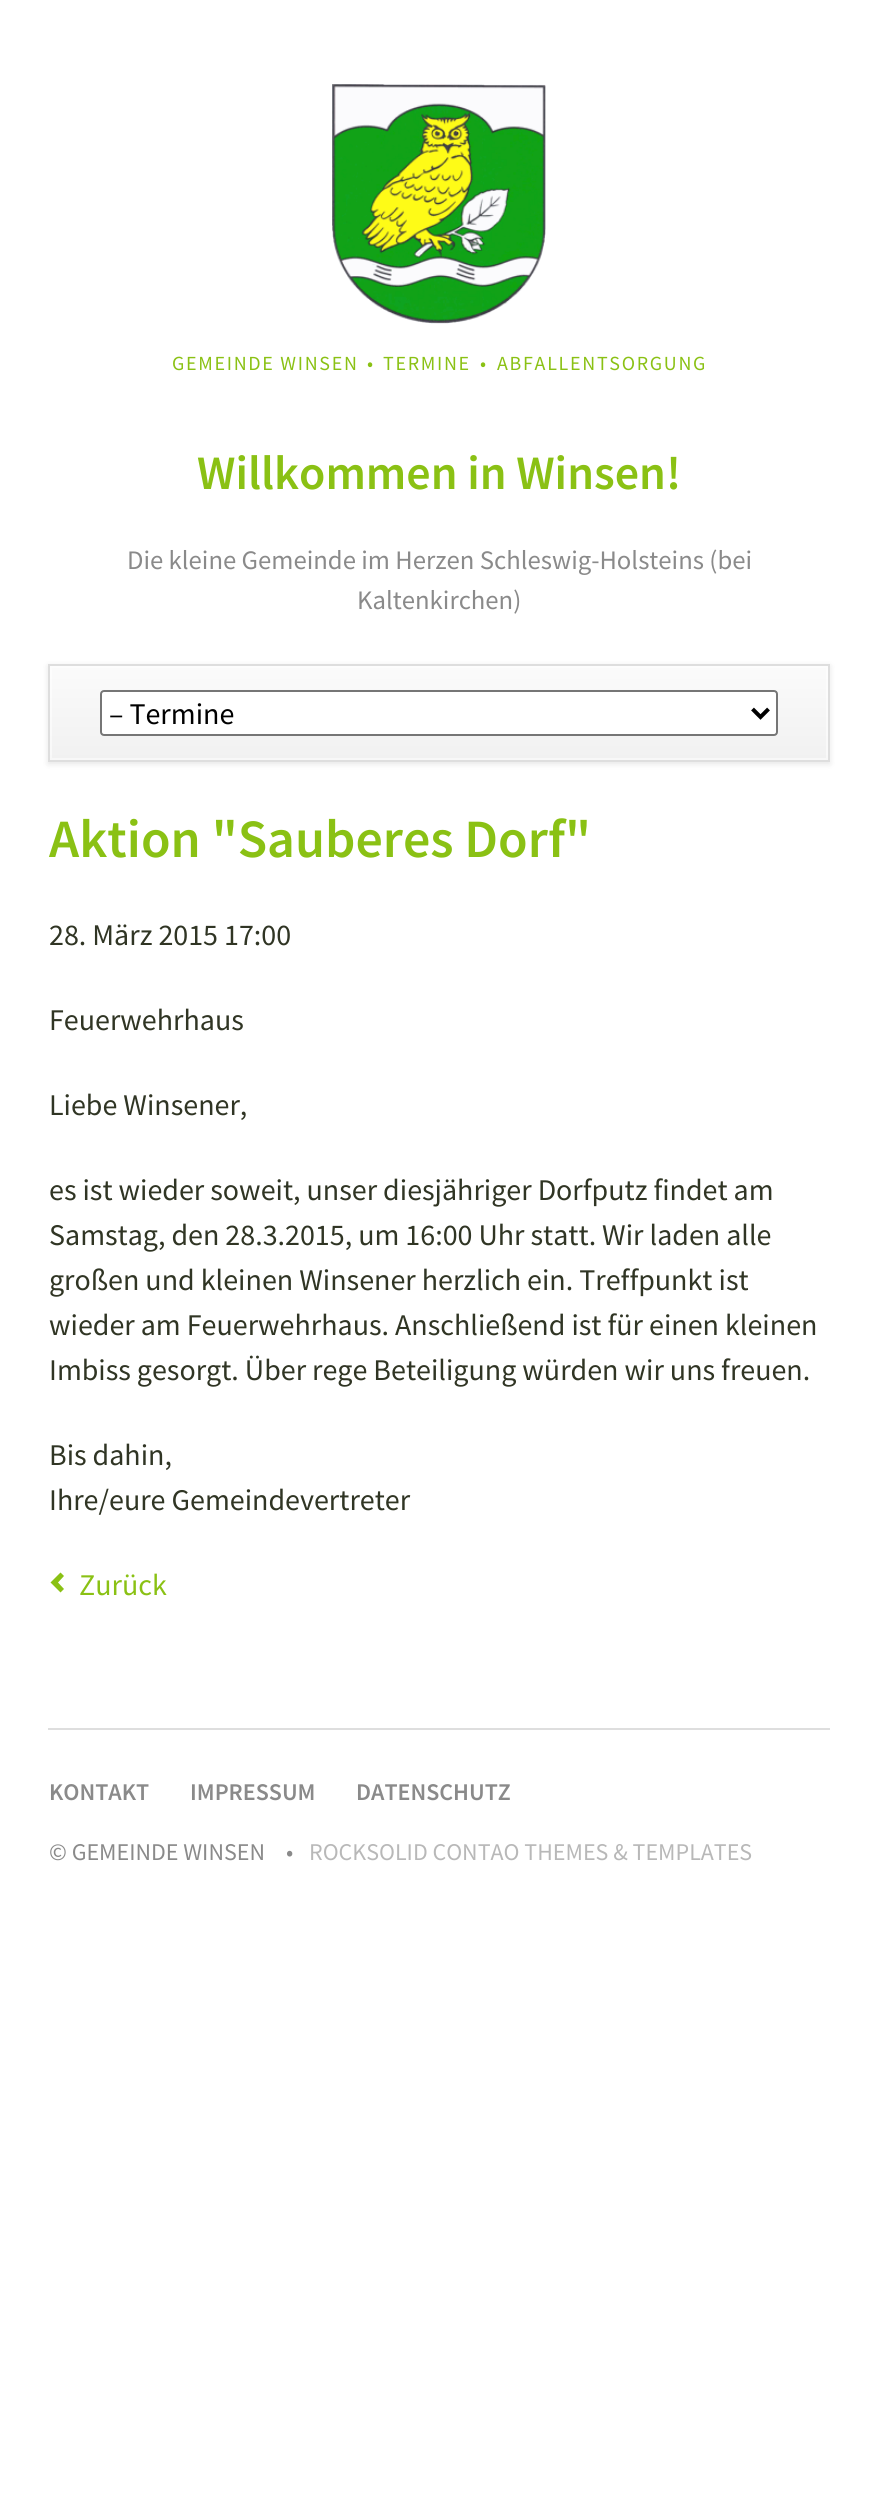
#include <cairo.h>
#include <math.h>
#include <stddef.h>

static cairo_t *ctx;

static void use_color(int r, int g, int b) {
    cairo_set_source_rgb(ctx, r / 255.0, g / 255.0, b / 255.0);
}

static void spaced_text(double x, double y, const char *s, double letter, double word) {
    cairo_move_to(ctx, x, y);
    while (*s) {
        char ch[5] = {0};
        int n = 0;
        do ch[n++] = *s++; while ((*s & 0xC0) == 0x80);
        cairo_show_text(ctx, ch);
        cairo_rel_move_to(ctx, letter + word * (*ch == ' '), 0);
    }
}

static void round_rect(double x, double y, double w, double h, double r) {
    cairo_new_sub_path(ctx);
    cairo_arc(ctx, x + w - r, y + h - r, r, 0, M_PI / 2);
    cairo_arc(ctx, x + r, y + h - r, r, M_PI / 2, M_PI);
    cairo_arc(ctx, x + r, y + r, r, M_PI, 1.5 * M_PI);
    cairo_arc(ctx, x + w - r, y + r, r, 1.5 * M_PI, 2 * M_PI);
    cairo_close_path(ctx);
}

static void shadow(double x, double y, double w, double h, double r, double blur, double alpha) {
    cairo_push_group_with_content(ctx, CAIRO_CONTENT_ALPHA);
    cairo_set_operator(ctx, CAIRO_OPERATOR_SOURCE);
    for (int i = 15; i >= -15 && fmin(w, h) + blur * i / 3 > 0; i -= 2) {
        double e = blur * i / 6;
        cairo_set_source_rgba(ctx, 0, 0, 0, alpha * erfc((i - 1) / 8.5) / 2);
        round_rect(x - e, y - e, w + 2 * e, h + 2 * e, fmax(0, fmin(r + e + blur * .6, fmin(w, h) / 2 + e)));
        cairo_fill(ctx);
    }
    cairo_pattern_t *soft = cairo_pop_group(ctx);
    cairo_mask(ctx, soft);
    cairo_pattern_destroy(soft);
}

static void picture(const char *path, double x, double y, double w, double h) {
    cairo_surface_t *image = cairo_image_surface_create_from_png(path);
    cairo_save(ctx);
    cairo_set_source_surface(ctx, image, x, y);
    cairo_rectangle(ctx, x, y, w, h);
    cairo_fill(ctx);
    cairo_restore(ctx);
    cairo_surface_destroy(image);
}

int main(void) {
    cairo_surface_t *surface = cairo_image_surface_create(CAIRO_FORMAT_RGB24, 878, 2510);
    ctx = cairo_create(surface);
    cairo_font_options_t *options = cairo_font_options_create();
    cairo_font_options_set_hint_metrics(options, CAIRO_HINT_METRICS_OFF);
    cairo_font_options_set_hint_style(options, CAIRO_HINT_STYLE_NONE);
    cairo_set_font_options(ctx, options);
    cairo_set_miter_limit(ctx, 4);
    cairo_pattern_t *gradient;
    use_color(255, 255, 255);
    cairo_paint(ctx);
    picture("img1.png", 332, 84, 214, 240);
    cairo_select_font_face(ctx, "Source Sans Pro", CAIRO_FONT_SLANT_NORMAL, CAIRO_FONT_WEIGHT_NORMAL);
    cairo_set_font_size(ctx, 20);
    use_color(138, 193, 20);
    spaced_text(172, 370, "GEMEINDE WINSEN", 1.7, 0);
    spaced_text(367, 370, "•", 1.7, 0);
    spaced_text(383, 370, "TERMINE", 1.7, 0);
    spaced_text(480, 370, "•", 1.7, 0);
    spaced_text(497, 370, "ABFALLENTSORGUNG", 1.7, 0);
    cairo_select_font_face(ctx, "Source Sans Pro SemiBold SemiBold", CAIRO_FONT_SLANT_NORMAL, CAIRO_FONT_WEIGHT_NORMAL);
    cairo_set_font_size(ctx, 48);
    cairo_move_to(ctx, 197, 489);
    cairo_show_text(ctx, "Willkommen in Winsen!");
    cairo_select_font_face(ctx, "Source Sans Pro", CAIRO_FONT_SLANT_NORMAL, CAIRO_FONT_WEIGHT_NORMAL);
    cairo_set_font_size(ctx, 26.7);
    use_color(138, 138, 138);
    cairo_move_to(ctx, 127, 569);
    cairo_show_text(ctx, "Die kleine Gemeinde im Herzen Schleswig-Holsteins (bei");
    cairo_move_to(ctx, 357, 609);
    cairo_show_text(ctx, "Kaltenkirchen)");
    use_color(0, 0, 0);
    shadow(48, 666, 782, 98, 0, 3, 0.1);
    gradient = cairo_pattern_create_linear(439, 666, 439, 760);
    cairo_pattern_add_color_stop_rgba(gradient, 0, 0.984, 0.984, 0.984, 1);
    cairo_pattern_add_color_stop_rgba(gradient, 1, 0.945, 0.945, 0.945, 1);
    cairo_set_source(ctx, gradient);
    cairo_pattern_destroy(gradient);
    cairo_rectangle(ctx, 50, 666, 778, 94);
    cairo_fill(ctx);
    cairo_rectangle(ctx, 51, 667, 776, 92);
    cairo_set_source_rgba(ctx, 1, 1, 1, 0.5);
    cairo_stroke(ctx);
    cairo_rectangle(ctx, 49, 665, 780, 96);
    use_color(222, 222, 222);
    cairo_stroke(ctx);
    use_color(255, 255, 255);
    round_rect(101, 691, 676, 44, 3);
    cairo_fill_preserve(ctx);
    use_color(118, 118, 118);
    cairo_stroke(ctx);
    cairo_new_path(ctx);
    cairo_move_to(ctx, 752.5, 709);
    cairo_line_to(ctx, 760.5, 717);
    cairo_line_to(ctx, 768.5, 709);
    use_color(0, 0, 0);
    cairo_set_line_width(ctx, 4);
    cairo_stroke(ctx);
    cairo_set_font_size(ctx, 30);
    cairo_move_to(ctx, 109, 724);
    cairo_show_text(ctx, "– Termine");
    cairo_select_font_face(ctx, "Source Sans Pro SemiBold SemiBold", CAIRO_FONT_SLANT_NORMAL, CAIRO_FONT_WEIGHT_NORMAL);
    cairo_set_font_size(ctx, 54);
    use_color(138, 193, 20);
    cairo_move_to(ctx, 49, 857);
    cairo_show_text(ctx, "Aktion \"Sauberes Dorf\"");
    cairo_select_font_face(ctx, "Source Sans Pro", CAIRO_FONT_SLANT_NORMAL, CAIRO_FONT_WEIGHT_NORMAL);
    cairo_set_font_size(ctx, 30);
    use_color(48, 53, 36);
    cairo_move_to(ctx, 49, 945);
    cairo_show_text(ctx, "28. März 2015 17:00");
    cairo_move_to(ctx, 49, 1030);
    cairo_show_text(ctx, "Feuerwehrhaus");
    cairo_move_to(ctx, 49, 1115);
    cairo_show_text(ctx, "Liebe Winsener,");
    cairo_move_to(ctx, 49, 1200);
    cairo_show_text(ctx, "es ist wieder soweit, unser diesjähriger Dorfputz findet am");
    cairo_move_to(ctx, 49, 1245);
    cairo_show_text(ctx, "Samstag, den 28.3.2015, um 16:00 Uhr statt. Wir laden alle");
    cairo_move_to(ctx, 49, 1290);
    cairo_show_text(ctx, "großen und kleinen Winsener herzlich ein. Treffpunkt ist");
    cairo_move_to(ctx, 49, 1335);
    cairo_show_text(ctx, "wieder am Feuerwehrhaus. Anschließend ist für einen kleinen");
    cairo_move_to(ctx, 49, 1380);
    cairo_show_text(ctx, "Imbiss gesorgt. Über rege Beteiligung würden wir uns freuen.");
    cairo_move_to(ctx, 49, 1465);
    cairo_show_text(ctx, "Bis dahin,");
    cairo_move_to(ctx, 49, 1510);
    cairo_show_text(ctx, "Ihre/eure Gemeindevertreter");
    use_color(138, 193, 20);
    cairo_new_path(ctx);
    cairo_move_to(ctx, 60.5, 1592.5);
    cairo_line_to(ctx, 64, 1589);
    cairo_line_to(ctx, 58, 1582.5);
    cairo_line_to(ctx, 64, 1576);
    cairo_line_to(ctx, 60.5, 1572.5);
    cairo_line_to(ctx, 50.5, 1582.5);
    cairo_close_path(ctx);
    cairo_fill(ctx);
    cairo_move_to(ctx, 79, 1595);
    cairo_show_text(ctx, "Zurück");
    use_color(222, 222, 222);
    cairo_rectangle(ctx, 48, 1728, 782, 2);
    cairo_fill(ctx);
    cairo_select_font_face(ctx, "Source Sans Pro SemiBold SemiBold", CAIRO_FONT_SLANT_NORMAL, CAIRO_FONT_WEIGHT_NORMAL);
    cairo_set_font_size(ctx, 24);
    use_color(138, 138, 138);
    cairo_move_to(ctx, 49, 1800);
    cairo_show_text(ctx, "KONTAKT");
    cairo_move_to(ctx, 190, 1800);
    cairo_show_text(ctx, "IMPRESSUM");
    cairo_move_to(ctx, 356, 1800);
    cairo_show_text(ctx, "DATENSCHUTZ");
    cairo_select_font_face(ctx, "Source Sans Pro", CAIRO_FONT_SLANT_NORMAL, CAIRO_FONT_WEIGHT_NORMAL);
    cairo_move_to(ctx, 49, 1860);
    cairo_show_text(ctx, "© GEMEINDE WINSEN");
    cairo_move_to(ctx, 286, 1860);
    cairo_show_text(ctx, "•");
    use_color(184, 184, 184);
    cairo_move_to(ctx, 309, 1860);
    cairo_show_text(ctx, "ROCKSOLID CONTAO THEMES & TEMPLATES");
    cairo_surface_write_to_png(surface, "result.png");
    cairo_font_options_destroy(options);
    cairo_destroy(ctx);
    cairo_surface_destroy(surface);
    return 0;
}
